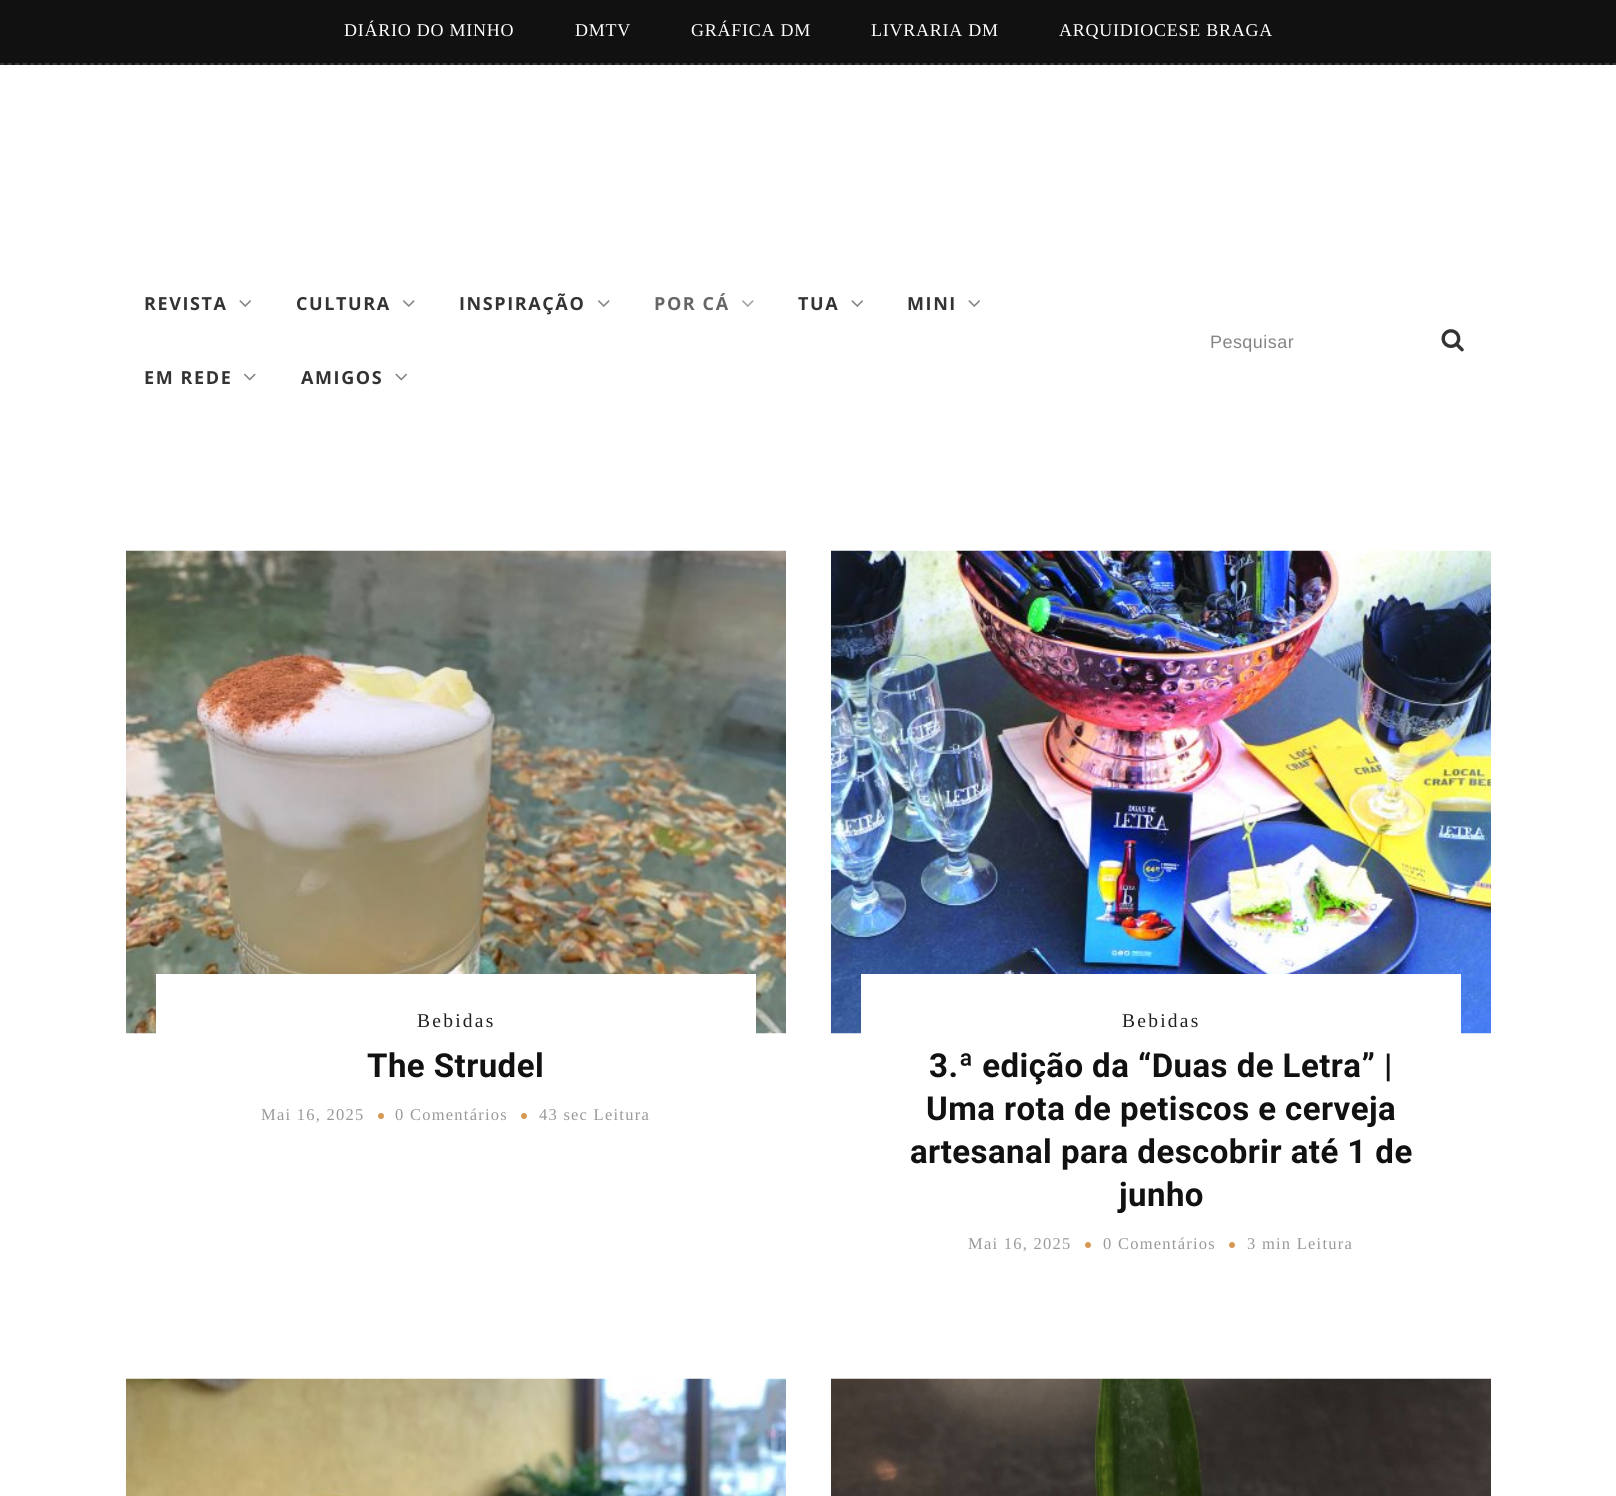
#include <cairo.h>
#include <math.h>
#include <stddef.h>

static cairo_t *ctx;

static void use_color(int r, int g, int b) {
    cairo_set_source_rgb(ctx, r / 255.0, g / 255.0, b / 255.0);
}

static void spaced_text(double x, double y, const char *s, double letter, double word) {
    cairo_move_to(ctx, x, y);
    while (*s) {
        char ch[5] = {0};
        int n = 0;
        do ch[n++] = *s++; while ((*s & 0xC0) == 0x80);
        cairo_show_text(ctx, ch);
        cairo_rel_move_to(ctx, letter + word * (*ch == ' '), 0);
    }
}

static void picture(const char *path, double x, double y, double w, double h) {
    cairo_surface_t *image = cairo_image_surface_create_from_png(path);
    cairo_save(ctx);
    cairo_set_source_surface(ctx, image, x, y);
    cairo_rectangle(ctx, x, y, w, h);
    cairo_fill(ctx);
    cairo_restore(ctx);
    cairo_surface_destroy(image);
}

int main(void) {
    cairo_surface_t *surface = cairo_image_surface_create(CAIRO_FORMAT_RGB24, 1616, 1496);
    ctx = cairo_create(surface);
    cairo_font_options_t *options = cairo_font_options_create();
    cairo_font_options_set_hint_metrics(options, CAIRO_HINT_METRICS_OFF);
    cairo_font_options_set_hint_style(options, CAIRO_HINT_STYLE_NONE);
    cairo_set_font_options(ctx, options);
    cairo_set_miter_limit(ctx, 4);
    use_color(255, 255, 255);
    cairo_paint(ctx);
    use_color(17, 17, 17);
    cairo_rectangle(ctx, 0, 0, 1616, 65);
    cairo_fill(ctx);
    cairo_new_path(ctx);
    cairo_move_to(ctx, 0, 64);
    cairo_line_to(ctx, 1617, 64);
    use_color(65, 65, 65);
    cairo_set_line_width(ctx, 1.5);
    cairo_set_dash(ctx, (double[]){4.5, 3}, 2, 0);
    cairo_stroke(ctx);
    cairo_select_font_face(ctx, "Liberation Serif", CAIRO_FONT_SLANT_NORMAL, CAIRO_FONT_WEIGHT_NORMAL);
    cairo_set_font_size(ctx, 18);
    use_color(255, 255, 255);
    spaced_text(344, 36, "DIÁRIO DO MINHO", 0.75, 0);
    spaced_text(575, 36, "DMTV", 0.75, 0);
    spaced_text(691, 36, "GRÁFICA DM", 0.75, 0);
    spaced_text(871, 36, "LIVRARIA DM", 0.75, 0);
    spaced_text(1059, 36, "ARQUIDIOCESE BRAGA", 0.75, 0);
    cairo_select_font_face(ctx, "Open Sans", CAIRO_FONT_SLANT_NORMAL, CAIRO_FONT_WEIGHT_BOLD);
    use_color(51, 51, 51);
    spaced_text(144, 310, "REVISTA", 1.6, 0);
    picture("img1.png", 239, 300, 12, 7);
    spaced_text(296, 310, "CULTURA", 1.6, 0);
    picture("img2.png", 403, 300, 12, 7);
    spaced_text(459, 310, "INSPIRAÇÃO", 1.6, 0);
    picture("img2.png", 598, 300, 12, 7);
    use_color(102, 102, 102);
    spaced_text(654, 310, "POR CÁ", 1.6, 0);
    picture("img3.png", 742, 300, 12, 7);
    use_color(51, 51, 51);
    spaced_text(798, 310, "TUA", 1.6, 0);
    picture("img1.png", 851, 300, 12, 7);
    spaced_text(907, 310, "MINI", 1.6, 0);
    picture("img1.png", 968, 300, 12, 7);
    spaced_text(144, 384, "EM REDE", 1.6, 0);
    picture("img4.png", 244, 373, 12, 8);
    spaced_text(301, 384, "AMIGOS", 1.6, 0);
    picture("img5.png", 395, 373, 12, 8);
    cairo_select_font_face(ctx, "Liberation Sans", CAIRO_FONT_SLANT_NORMAL, CAIRO_FONT_WEIGHT_NORMAL);
    use_color(133, 133, 133);
    spaced_text(1210, 348, "Pesquisar", 0.45, 0);
    picture("img6.png", 1441, 329, 23, 23);
    picture("img7.png", 126, 550, 660, 484);
    use_color(255, 255, 255);
    cairo_rectangle(ctx, 156, 974, 600, 60);
    cairo_fill(ctx);
    cairo_select_font_face(ctx, "Liberation Serif", CAIRO_FONT_SLANT_NORMAL, CAIRO_FONT_WEIGHT_NORMAL);
    cairo_set_font_size(ctx, 19.5);
    use_color(34, 34, 34);
    spaced_text(417, 1027, "Bebidas", 2.25, 0);
    cairo_select_font_face(ctx, "Roboto", CAIRO_FONT_SLANT_NORMAL, CAIRO_FONT_WEIGHT_BOLD);
    cairo_set_font_size(ctx, 33);
    use_color(17, 17, 17);
    spaced_text(367, 1077, "The Strudel", 0.45, 0);
    cairo_select_font_face(ctx, "Liberation Serif", CAIRO_FONT_SLANT_NORMAL, CAIRO_FONT_WEIGHT_NORMAL);
    cairo_set_font_size(ctx, 16.5);
    use_color(153, 153, 153);
    spaced_text(261, 1120, "Mai 16, 2025", 1.25, 0);
    use_color(214, 151, 83);
    cairo_new_path(ctx);
    cairo_arc(ctx, 381, 1116, 3, 0, 2 * M_PI);
    cairo_fill(ctx);
    use_color(153, 153, 153);
    spaced_text(395, 1120, "0 Comentários", 1.25, 0);
    use_color(214, 151, 83);
    cairo_new_path(ctx);
    cairo_arc(ctx, 524, 1116, 3, 0, 2 * M_PI);
    cairo_fill(ctx);
    use_color(153, 153, 153);
    spaced_text(539, 1120, "43 sec Leitura", 1.25, 0);
    picture("img8.png", 831, 550, 660, 484);
    use_color(255, 255, 255);
    cairo_rectangle(ctx, 861, 974, 600, 60);
    cairo_fill(ctx);
    cairo_set_font_size(ctx, 19.5);
    use_color(34, 34, 34);
    spaced_text(1122, 1027, "Bebidas", 2.25, 0);
    cairo_select_font_face(ctx, "Roboto", CAIRO_FONT_SLANT_NORMAL, CAIRO_FONT_WEIGHT_BOLD);
    cairo_set_font_size(ctx, 33);
    use_color(17, 17, 17);
    spaced_text(929, 1077, "3.ª edição da “Duas de Letra” |", 0.45, 0);
    spaced_text(926, 1120, "Uma rota de petiscos e cerveja", 0.45, 0);
    spaced_text(910, 1163, "artesanal para descobrir até 1 de", 0.45, 0);
    spaced_text(1119, 1206, "junho", 0.45, 0);
    cairo_select_font_face(ctx, "Liberation Serif", CAIRO_FONT_SLANT_NORMAL, CAIRO_FONT_WEIGHT_NORMAL);
    cairo_set_font_size(ctx, 16.5);
    use_color(153, 153, 153);
    spaced_text(968, 1249, "Mai 16, 2025", 1.25, 0);
    use_color(214, 151, 83);
    cairo_new_path(ctx);
    cairo_arc(ctx, 1088, 1245, 3, 0, 2 * M_PI);
    cairo_fill(ctx);
    use_color(153, 153, 153);
    spaced_text(1103, 1249, "0 Comentários", 1.25, 0);
    use_color(214, 151, 83);
    cairo_new_path(ctx);
    cairo_arc(ctx, 1232, 1245, 3, 0, 2 * M_PI);
    cairo_fill(ctx);
    use_color(153, 153, 153);
    spaced_text(1247, 1249, "3 min Leitura", 1.25, 0);
    picture("img9.png", 126, 1378, 660, 118);
    picture("img10.png", 831, 1378, 660, 118);
    cairo_surface_write_to_png(surface, "result.png");
    cairo_font_options_destroy(options);
    cairo_destroy(ctx);
    cairo_surface_destroy(surface);
    return 0;
}
